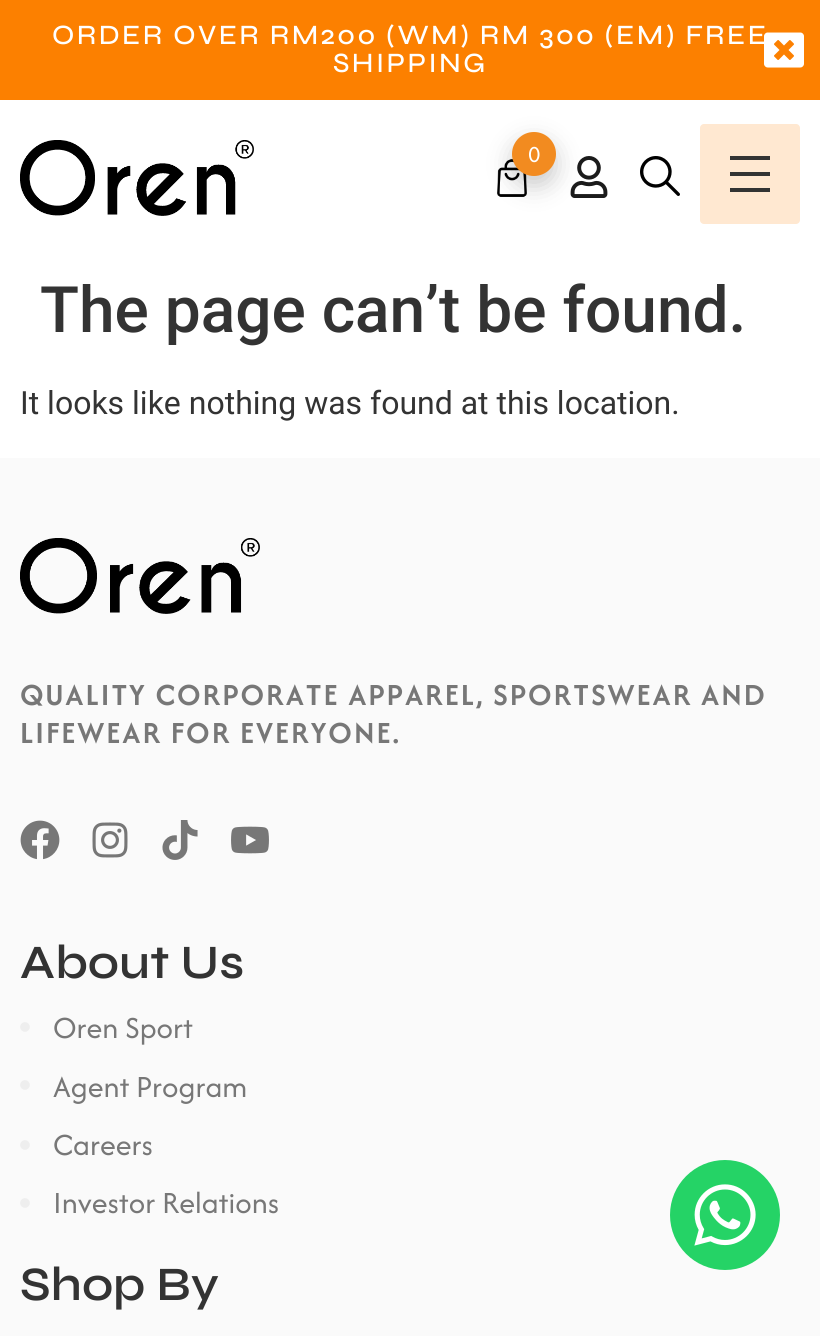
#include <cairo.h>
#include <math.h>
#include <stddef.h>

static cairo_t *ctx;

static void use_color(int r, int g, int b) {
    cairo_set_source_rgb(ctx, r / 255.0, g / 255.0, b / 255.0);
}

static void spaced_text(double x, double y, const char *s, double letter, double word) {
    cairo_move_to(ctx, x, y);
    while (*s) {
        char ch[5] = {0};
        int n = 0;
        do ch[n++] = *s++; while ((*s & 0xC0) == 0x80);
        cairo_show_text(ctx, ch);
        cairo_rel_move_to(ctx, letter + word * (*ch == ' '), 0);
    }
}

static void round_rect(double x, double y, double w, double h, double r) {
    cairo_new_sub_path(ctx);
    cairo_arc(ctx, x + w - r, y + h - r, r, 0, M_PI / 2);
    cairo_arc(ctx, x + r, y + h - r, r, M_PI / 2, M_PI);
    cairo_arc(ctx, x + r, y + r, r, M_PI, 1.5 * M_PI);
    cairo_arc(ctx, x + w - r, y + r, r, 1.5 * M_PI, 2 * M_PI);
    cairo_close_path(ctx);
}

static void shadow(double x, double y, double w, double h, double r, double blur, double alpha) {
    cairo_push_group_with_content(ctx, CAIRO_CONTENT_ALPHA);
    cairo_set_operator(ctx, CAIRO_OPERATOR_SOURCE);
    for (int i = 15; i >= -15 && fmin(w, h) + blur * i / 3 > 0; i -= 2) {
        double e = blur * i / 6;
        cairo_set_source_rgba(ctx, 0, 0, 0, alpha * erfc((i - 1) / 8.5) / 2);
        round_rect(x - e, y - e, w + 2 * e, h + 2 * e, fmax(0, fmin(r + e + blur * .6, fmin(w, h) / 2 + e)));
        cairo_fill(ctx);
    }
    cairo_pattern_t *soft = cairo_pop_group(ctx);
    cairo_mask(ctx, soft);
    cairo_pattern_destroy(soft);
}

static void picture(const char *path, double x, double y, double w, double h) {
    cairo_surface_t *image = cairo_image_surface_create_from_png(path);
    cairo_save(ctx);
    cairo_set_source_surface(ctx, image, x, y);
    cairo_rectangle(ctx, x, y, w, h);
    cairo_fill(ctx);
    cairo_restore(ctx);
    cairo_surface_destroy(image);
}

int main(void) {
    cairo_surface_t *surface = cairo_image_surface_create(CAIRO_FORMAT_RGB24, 820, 1336);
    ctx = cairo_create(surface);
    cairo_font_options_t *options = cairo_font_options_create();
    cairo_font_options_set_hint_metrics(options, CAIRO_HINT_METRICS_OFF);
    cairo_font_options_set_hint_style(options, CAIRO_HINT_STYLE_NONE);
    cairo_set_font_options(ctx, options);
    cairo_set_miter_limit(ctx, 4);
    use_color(255, 255, 255);
    cairo_paint(ctx);
    use_color(252, 128, 0);
    cairo_rectangle(ctx, 0, 0, 820, 100);
    cairo_fill(ctx);
    cairo_select_font_face(ctx, "Syne Medium", CAIRO_FONT_SLANT_NORMAL, CAIRO_FONT_WEIGHT_NORMAL);
    cairo_set_font_size(ctx, 28);
    use_color(255, 255, 255);
    spaced_text(52, 44, "ORDER OVER RM200 (WM) RM 300 (EM) FREE", 2.4, 0);
    spaced_text(333, 72, "SHIPPING", 2.4, 0);
    picture("img1.png", 764, 32, 40, 36);
    picture("img2.png", 20, 140, 234, 76);
    picture("img3.png", 497, 159, 30, 38);
    use_color(0, 0, 0);
    shadow(512, 142, 44, 44, 22, 12, 0.2);
    use_color(242, 139, 32);
    cairo_arc(ctx, 534, 154, 22, 0, 2 * M_PI);
    cairo_fill(ctx);
    cairo_select_font_face(ctx, "Afacad", CAIRO_FONT_SLANT_NORMAL, CAIRO_FONT_WEIGHT_NORMAL);
    cairo_set_font_size(ctx, 24);
    use_color(255, 255, 255);
    cairo_move_to(ctx, 528, 162);
    cairo_show_text(ctx, "0");
    picture("img4.png", 570, 156, 38, 42);
    picture("img5.png", 640, 156, 40, 40);
    use_color(255, 232, 209);
    round_rect(700, 124, 100, 100, 4);
    cairo_fill(ctx);
    use_color(51, 51, 51);
    cairo_rectangle(ctx, 730, 156, 40, 4);
    cairo_fill(ctx);
    cairo_rectangle(ctx, 730, 172, 40, 4);
    cairo_fill(ctx);
    cairo_rectangle(ctx, 730, 188, 40, 4);
    cairo_fill(ctx);
    use_color(250, 250, 250);
    cairo_rectangle(ctx, 0, 458, 820, 878);
    cairo_fill(ctx);
    use_color(37, 211, 102);
    cairo_arc(ctx, 725, 1215, 55, 0, 2 * M_PI);
    cairo_fill(ctx);
    picture("img6.png", 694, 1184, 62, 62);
    cairo_select_font_face(ctx, "Roboto Medium", CAIRO_FONT_SLANT_NORMAL, CAIRO_FONT_WEIGHT_NORMAL);
    cairo_set_font_size(ctx, 64);
    use_color(51, 51, 51);
    cairo_move_to(ctx, 40, 332);
    cairo_show_text(ctx, "The page can’t be found.");
    cairo_select_font_face(ctx, "Roboto", CAIRO_FONT_SLANT_NORMAL, CAIRO_FONT_WEIGHT_NORMAL);
    cairo_set_font_size(ctx, 32);
    cairo_move_to(ctx, 20, 414);
    cairo_show_text(ctx, "It looks like nothing was found at this location.");
    picture("img7.png", 20, 538, 240, 76);
    cairo_select_font_face(ctx, "Afacad SemiBold", CAIRO_FONT_SLANT_NORMAL, CAIRO_FONT_WEIGHT_NORMAL);
    use_color(119, 119, 119);
    spaced_text(20, 705, "QUALITY CORPORATE APPAREL, SPORTSWEAR AND", 2, 0);
    spaced_text(20, 743, "LIFEWEAR FOR EVERYONE.", 2, 0);
    picture("img8.png", 20, 820, 40, 40);
    picture("img9.png", 92, 822, 36, 36);
    picture("img10.png", 162, 820, 36, 40);
    picture("img11.png", 231, 826, 38, 28);
    cairo_select_font_face(ctx, "Syne SemiBold", CAIRO_FONT_SLANT_NORMAL, CAIRO_FONT_WEIGHT_NORMAL);
    cairo_set_font_size(ctx, 48);
    use_color(51, 51, 51);
    cairo_move_to(ctx, 20, 978);
    cairo_show_text(ctx, "About Us");
    picture("img12.png", 20, 1022, 10, 10);
    cairo_select_font_face(ctx, "Afacad", CAIRO_FONT_SLANT_NORMAL, CAIRO_FONT_WEIGHT_NORMAL);
    cairo_set_font_size(ctx, 32);
    use_color(119, 119, 119);
    cairo_move_to(ctx, 53, 1038);
    cairo_show_text(ctx, "Oren Sport");
    picture("img12.png", 20, 1080, 10, 10);
    cairo_move_to(ctx, 53, 1097);
    cairo_show_text(ctx, "Agent Program");
    picture("img12.png", 20, 1140, 10, 10);
    cairo_move_to(ctx, 53, 1155);
    cairo_show_text(ctx, "Careers");
    picture("img12.png", 20, 1198, 10, 10);
    cairo_move_to(ctx, 53, 1213);
    cairo_show_text(ctx, "Investor Relations");
    cairo_select_font_face(ctx, "Syne SemiBold", CAIRO_FONT_SLANT_NORMAL, CAIRO_FONT_WEIGHT_NORMAL);
    cairo_set_font_size(ctx, 48);
    use_color(51, 51, 51);
    cairo_move_to(ctx, 20, 1300);
    cairo_show_text(ctx, "Shop By");
    cairo_surface_write_to_png(surface, "result.png");
    cairo_font_options_destroy(options);
    cairo_destroy(ctx);
    cairo_surface_destroy(surface);
    return 0;
}
